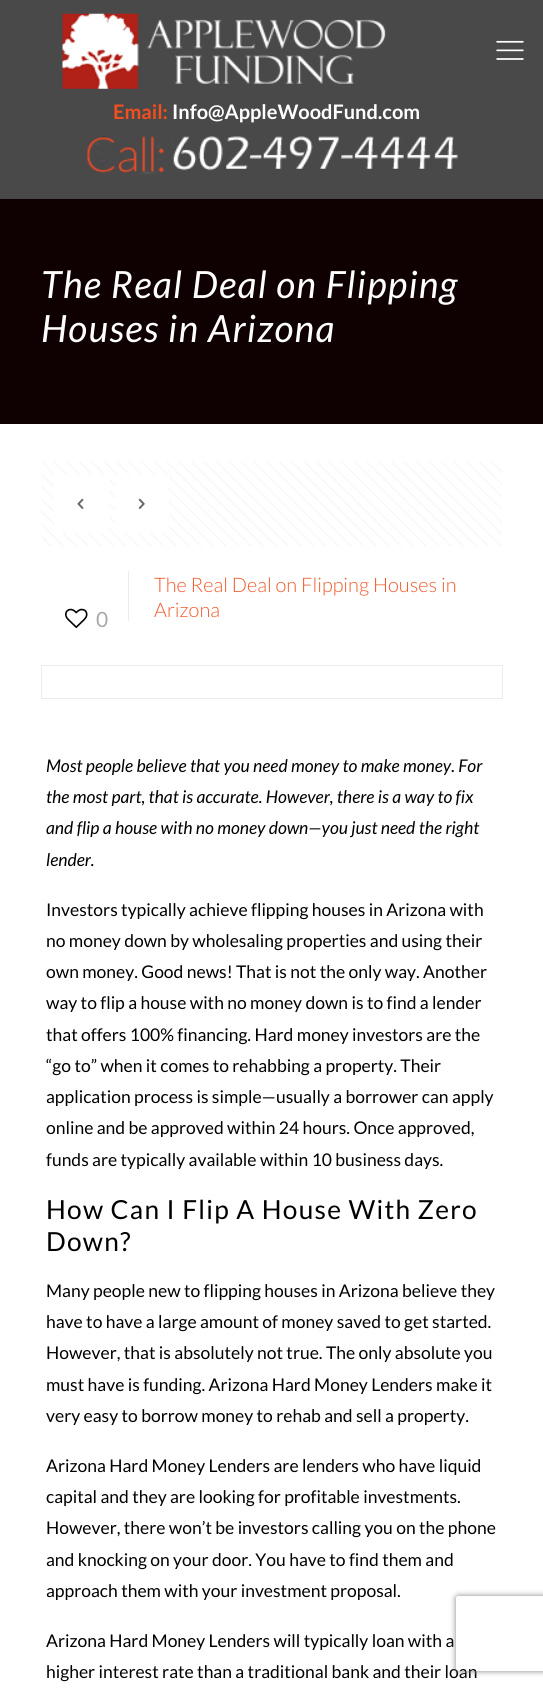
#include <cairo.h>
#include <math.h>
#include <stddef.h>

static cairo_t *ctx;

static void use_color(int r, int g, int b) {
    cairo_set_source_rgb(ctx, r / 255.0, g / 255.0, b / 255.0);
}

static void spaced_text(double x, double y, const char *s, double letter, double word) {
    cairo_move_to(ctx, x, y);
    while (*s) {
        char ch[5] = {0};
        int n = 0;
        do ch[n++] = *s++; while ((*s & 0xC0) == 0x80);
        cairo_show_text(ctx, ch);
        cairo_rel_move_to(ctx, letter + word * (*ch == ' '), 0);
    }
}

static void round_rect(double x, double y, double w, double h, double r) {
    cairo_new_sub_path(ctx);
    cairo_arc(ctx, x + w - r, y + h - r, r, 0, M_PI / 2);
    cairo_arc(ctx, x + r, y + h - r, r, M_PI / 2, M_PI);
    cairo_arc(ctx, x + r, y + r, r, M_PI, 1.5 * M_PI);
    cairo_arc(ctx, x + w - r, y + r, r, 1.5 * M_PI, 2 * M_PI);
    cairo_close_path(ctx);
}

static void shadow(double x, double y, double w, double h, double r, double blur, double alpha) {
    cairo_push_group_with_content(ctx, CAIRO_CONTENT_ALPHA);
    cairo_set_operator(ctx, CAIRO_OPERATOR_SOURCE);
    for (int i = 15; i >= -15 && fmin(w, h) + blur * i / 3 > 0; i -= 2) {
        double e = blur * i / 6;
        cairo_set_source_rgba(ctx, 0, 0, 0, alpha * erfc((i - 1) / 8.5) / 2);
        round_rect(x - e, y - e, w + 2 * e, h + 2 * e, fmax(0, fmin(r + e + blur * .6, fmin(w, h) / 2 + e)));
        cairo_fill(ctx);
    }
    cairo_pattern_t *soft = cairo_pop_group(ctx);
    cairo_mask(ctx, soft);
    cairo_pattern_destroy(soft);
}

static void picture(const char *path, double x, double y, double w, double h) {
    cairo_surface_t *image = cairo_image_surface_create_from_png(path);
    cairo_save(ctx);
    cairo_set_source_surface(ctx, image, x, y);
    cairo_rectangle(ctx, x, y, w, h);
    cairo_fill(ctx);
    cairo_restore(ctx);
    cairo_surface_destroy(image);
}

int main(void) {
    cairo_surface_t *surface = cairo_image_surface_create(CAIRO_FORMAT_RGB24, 543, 1688);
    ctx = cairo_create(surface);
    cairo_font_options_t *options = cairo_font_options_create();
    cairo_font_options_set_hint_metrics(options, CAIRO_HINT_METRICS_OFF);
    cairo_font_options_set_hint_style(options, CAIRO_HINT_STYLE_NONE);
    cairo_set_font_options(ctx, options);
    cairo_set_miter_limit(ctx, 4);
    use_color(255, 255, 255);
    cairo_paint(ctx);
    use_color(15, 1, 1);
    cairo_rectangle(ctx, 0, 199, 543, 225);
    cairo_fill(ctx);
    use_color(73, 73, 73);
    cairo_rectangle(ctx, 0, 0, 543, 199);
    cairo_fill(ctx);
    picture("img1.png", 62, 13, 324, 76);
    picture("img2.png", 496, 40, 28, 20);
    cairo_select_font_face(ctx, "Lato", CAIRO_FONT_SLANT_NORMAL, CAIRO_FONT_WEIGHT_BOLD);
    cairo_set_font_size(ctx, 20);
    use_color(241, 79, 29);
    cairo_move_to(ctx, 113, 119);
    cairo_show_text(ctx, "Email:");
    use_color(255, 255, 255);
    cairo_move_to(ctx, 172, 119);
    cairo_show_text(ctx, "Info@AppleWoodFund.com");
    picture("img3.png", 86, 132, 372, 42);
    cairo_select_font_face(ctx, "Lato", CAIRO_FONT_SLANT_ITALIC, CAIRO_FONT_WEIGHT_NORMAL);
    cairo_set_font_size(ctx, 37.5);
    spaced_text(41, 298, "The Real Deal on Flipping", 1.25, 0);
    spaced_text(41, 342, "Houses in Arizona", 1.25, 0);
    picture("img4.png", 41, 461, 461, 85);
    cairo_rectangle(ctx, 54, 474, 55, 59);
    cairo_fill(ctx);
    picture("img5.png", 77, 498, 7, 11);
    cairo_rectangle(ctx, 115, 474, 54, 59);
    cairo_fill(ctx);
    picture("img6.png", 138, 498, 7, 11);
    picture("img7.png", 65, 608, 23, 20);
    cairo_select_font_face(ctx, "Lato", CAIRO_FONT_SLANT_NORMAL, CAIRO_FONT_WEIGHT_NORMAL);
    cairo_set_font_size(ctx, 21);
    use_color(168, 168, 168);
    cairo_move_to(ctx, 96, 627);
    cairo_show_text(ctx, "0");
    use_color(235, 235, 235);
    cairo_rectangle(ctx, 128, 571, 1, 50);
    cairo_fill(ctx);
    cairo_select_font_face(ctx, "Lato Light", CAIRO_FONT_SLANT_NORMAL, CAIRO_FONT_WEIGHT_NORMAL);
    cairo_set_font_size(ctx, 20);
    use_color(241, 89, 42);
    cairo_move_to(ctx, 154, 592);
    cairo_show_text(ctx, "The Real Deal on Flipping Houses in");
    cairo_move_to(ctx, 154, 617);
    cairo_show_text(ctx, "Arizona");
    cairo_rectangle(ctx, 41.5, 665.5, 461, 33);
    use_color(235, 235, 235);
    cairo_set_line_width(ctx, 1);
    cairo_stroke(ctx);
    cairo_select_font_face(ctx, "Lato", CAIRO_FONT_SLANT_ITALIC, CAIRO_FONT_WEIGHT_NORMAL);
    cairo_set_font_size(ctx, 17.5);
    use_color(0, 0, 0);
    cairo_move_to(ctx, 46, 772);
    cairo_show_text(ctx, "Most people believe that you need money to make money. For");
    cairo_move_to(ctx, 46, 803);
    cairo_show_text(ctx, "the most part, that is accurate. However, there is a way to fix");
    cairo_move_to(ctx, 46, 834);
    cairo_show_text(ctx, "and flip a house with no money down—you just need the right");
    cairo_move_to(ctx, 46, 866);
    cairo_show_text(ctx, "lender.");
    cairo_select_font_face(ctx, "Lato", CAIRO_FONT_SLANT_NORMAL, CAIRO_FONT_WEIGHT_NORMAL);
    cairo_move_to(ctx, 46, 916);
    cairo_show_text(ctx, "Investors typically achieve flipping houses in Arizona with");
    cairo_move_to(ctx, 46, 947);
    cairo_show_text(ctx, "no money down by wholesaling properties and using their");
    cairo_move_to(ctx, 46, 978);
    cairo_show_text(ctx, "own money. Good news! That is not the only way. Another");
    cairo_move_to(ctx, 46, 1009);
    cairo_show_text(ctx, "way to flip a house with no money down is to find a lender");
    cairo_move_to(ctx, 46, 1041);
    cairo_show_text(ctx, "that offers 100% financing. Hard money investors are the");
    cairo_move_to(ctx, 46, 1072);
    cairo_show_text(ctx, "“go to” when it comes to rehabbing a property. Their");
    cairo_move_to(ctx, 46, 1103);
    cairo_show_text(ctx, "application process is simple—usually a borrower can apply");
    cairo_move_to(ctx, 46, 1134);
    cairo_show_text(ctx, "online and be approved within 24 hours. Once approved,");
    cairo_move_to(ctx, 46, 1166);
    cairo_show_text(ctx, "funds are typically available within 10 business days.");
    cairo_set_font_size(ctx, 26.25);
    spaced_text(46, 1219, "How Can I Flip A House With Zero", 1.25, 0);
    spaced_text(46, 1251, "Down?", 1.25, 0);
    cairo_set_font_size(ctx, 17.5);
    cairo_move_to(ctx, 46, 1297);
    cairo_show_text(ctx, "Many people new to flipping houses in Arizona believe they");
    cairo_move_to(ctx, 46, 1328);
    cairo_show_text(ctx, "have to have a large amount of money saved to get started.");
    cairo_move_to(ctx, 46, 1359);
    cairo_show_text(ctx, "However, that is absolutely not true. The only absolute you");
    cairo_move_to(ctx, 46, 1391);
    cairo_show_text(ctx, "must have is funding. Arizona Hard Money Lenders make it");
    cairo_move_to(ctx, 46, 1422);
    cairo_show_text(ctx, "very easy to borrow money to rehab and sell a property.");
    cairo_move_to(ctx, 46, 1472);
    cairo_show_text(ctx, "Arizona Hard Money Lenders are lenders who have liquid");
    cairo_move_to(ctx, 46, 1503);
    cairo_show_text(ctx, "capital and they are looking for profitable investments.");
    cairo_move_to(ctx, 46, 1534);
    cairo_show_text(ctx, "However, there won’t be investors calling you on the phone");
    cairo_move_to(ctx, 46, 1566);
    cairo_show_text(ctx, "and knocking on your door. You have to find them and");
    cairo_move_to(ctx, 46, 1597);
    cairo_show_text(ctx, "approach them with your investment proposal.");
    cairo_move_to(ctx, 46, 1647);
    cairo_show_text(ctx, "Arizona Hard Money Lenders will typically loan with a");
    cairo_move_to(ctx, 46, 1678);
    cairo_show_text(ctx, "higher interest rate than a traditional bank and their loan");
    cairo_save(ctx);
    cairo_set_fill_rule(ctx, CAIRO_FILL_RULE_EVEN_ODD);
    cairo_new_path(ctx);
    cairo_move_to(ctx, 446, 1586);
    cairo_line_to(ctx, 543, 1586);
    cairo_line_to(ctx, 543, 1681);
    cairo_line_to(ctx, 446, 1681);
    cairo_close_path(ctx);
    cairo_move_to(ctx, 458.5, 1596);
    cairo_line_to(ctx, 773.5, 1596);
    cairo_curve_to(ctx, 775, 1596, 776, 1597, 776, 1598.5);
    cairo_line_to(ctx, 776, 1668.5);
    cairo_curve_to(ctx, 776, 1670, 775, 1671, 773.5, 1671);
    cairo_line_to(ctx, 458.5, 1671);
    cairo_curve_to(ctx, 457, 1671, 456, 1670, 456, 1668.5);
    cairo_line_to(ctx, 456, 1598.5);
    cairo_curve_to(ctx, 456, 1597, 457, 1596, 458.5, 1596);
    cairo_close_path(ctx);
    cairo_clip(ctx);
    use_color(128, 128, 128);
    shadow(456, 1596, 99, 75, 2.5, 3, 1);
    cairo_restore(ctx);
    cairo_surface_write_to_png(surface, "result.png");
    cairo_font_options_destroy(options);
    cairo_destroy(ctx);
    cairo_surface_destroy(surface);
    return 0;
}
